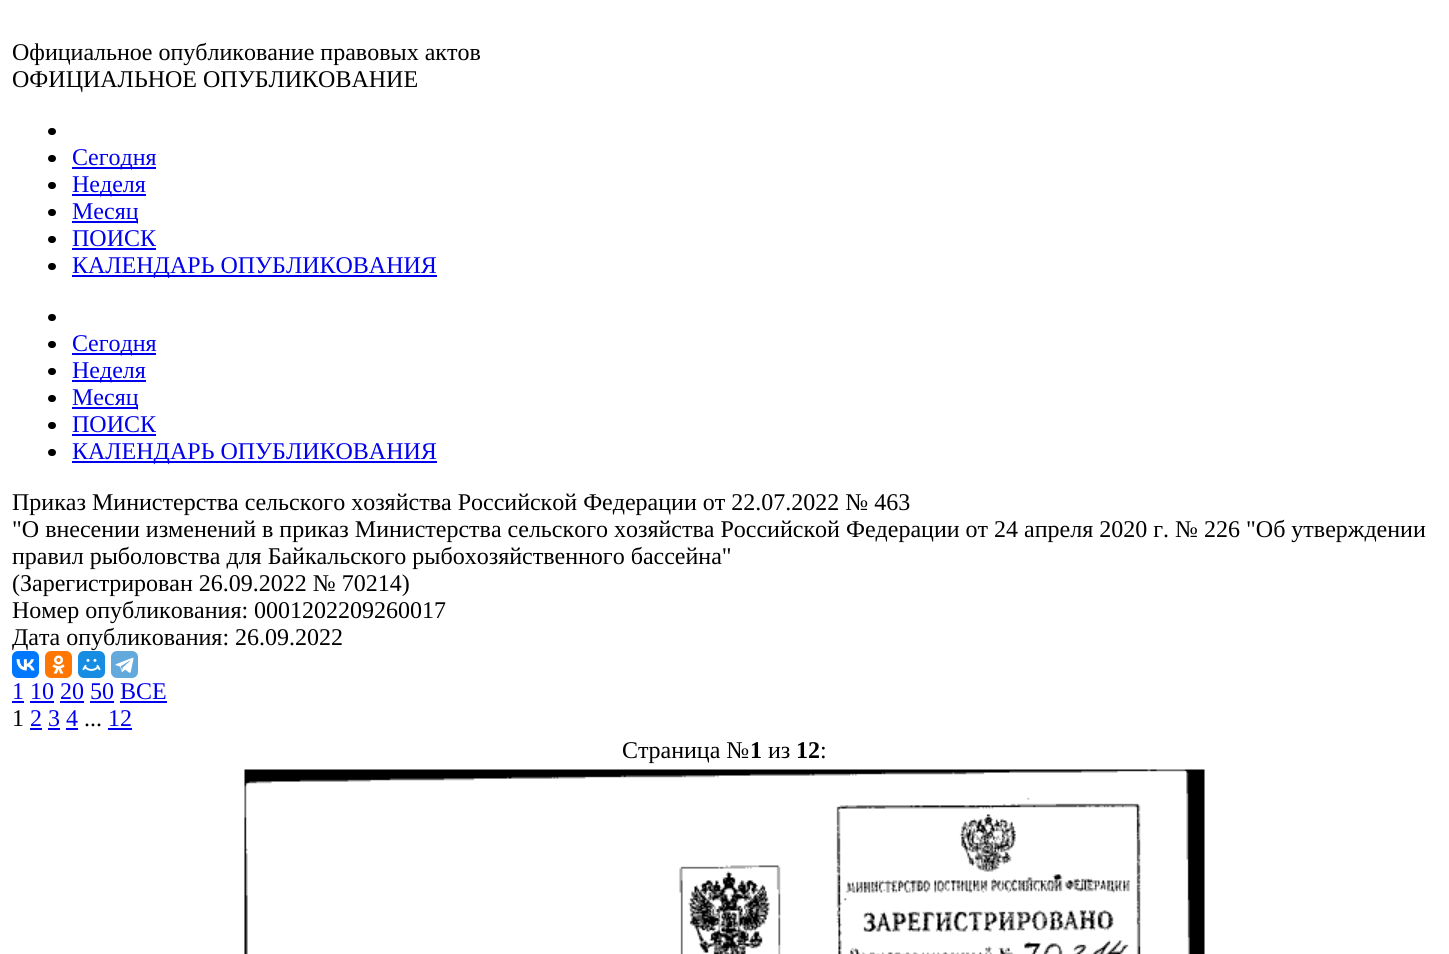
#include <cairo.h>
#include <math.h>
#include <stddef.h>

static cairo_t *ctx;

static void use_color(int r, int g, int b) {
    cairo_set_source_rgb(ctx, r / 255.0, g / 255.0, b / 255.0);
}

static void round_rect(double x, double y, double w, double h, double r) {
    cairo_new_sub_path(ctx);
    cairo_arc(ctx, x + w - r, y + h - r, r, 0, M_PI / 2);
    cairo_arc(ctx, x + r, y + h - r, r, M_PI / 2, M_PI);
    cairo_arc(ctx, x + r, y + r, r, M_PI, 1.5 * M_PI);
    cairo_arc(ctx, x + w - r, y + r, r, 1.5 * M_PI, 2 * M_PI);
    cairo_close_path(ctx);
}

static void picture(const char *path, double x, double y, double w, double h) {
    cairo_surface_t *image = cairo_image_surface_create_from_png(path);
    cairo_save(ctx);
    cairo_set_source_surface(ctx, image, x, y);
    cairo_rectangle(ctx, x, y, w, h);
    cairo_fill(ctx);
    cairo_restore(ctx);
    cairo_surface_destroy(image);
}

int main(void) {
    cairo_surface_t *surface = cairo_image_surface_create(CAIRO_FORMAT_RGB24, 1449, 954);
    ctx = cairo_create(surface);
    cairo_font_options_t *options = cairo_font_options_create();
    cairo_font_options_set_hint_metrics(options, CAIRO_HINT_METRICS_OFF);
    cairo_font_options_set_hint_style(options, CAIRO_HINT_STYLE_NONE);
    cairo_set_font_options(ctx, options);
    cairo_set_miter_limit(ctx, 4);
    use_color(255, 255, 255);
    cairo_paint(ctx);
    cairo_select_font_face(ctx, "Liberation Serif", CAIRO_FONT_SLANT_NORMAL, CAIRO_FONT_WEIGHT_NORMAL);
    cairo_set_font_size(ctx, 24);
    use_color(0, 0, 0);
    cairo_move_to(ctx, 12, 60);
    cairo_show_text(ctx, "Официальное опубликование правовых актов");
    cairo_move_to(ctx, 12, 87);
    cairo_show_text(ctx, "ОФИЦИАЛЬНОЕ ОПУБЛИКОВАНИЕ");
    round_rect(48, 128, 8, 7, 3.5);
    cairo_fill(ctx);
    round_rect(48, 155, 8, 7, 3.5);
    cairo_fill(ctx);
    use_color(0, 0, 238);
    cairo_rectangle(ctx, 72, 167, 84, 2);
    cairo_fill(ctx);
    cairo_move_to(ctx, 72, 165);
    cairo_show_text(ctx, "Сегодня");
    use_color(0, 0, 0);
    round_rect(48, 182, 8, 7, 3.5);
    cairo_fill(ctx);
    use_color(0, 0, 238);
    cairo_rectangle(ctx, 72, 194, 74, 2);
    cairo_fill(ctx);
    cairo_move_to(ctx, 72, 192);
    cairo_show_text(ctx, "Неделя");
    use_color(0, 0, 0);
    round_rect(48, 209, 8, 7, 3.5);
    cairo_fill(ctx);
    use_color(0, 0, 238);
    cairo_rectangle(ctx, 72, 221, 66, 2);
    cairo_fill(ctx);
    cairo_move_to(ctx, 72, 219);
    cairo_show_text(ctx, "Месяц");
    use_color(0, 0, 0);
    round_rect(48, 236, 8, 7, 3.5);
    cairo_fill(ctx);
    use_color(0, 0, 238);
    cairo_move_to(ctx, 72, 246);
    cairo_show_text(ctx, "ПОИСК");
    cairo_rectangle(ctx, 72, 248, 84, 2);
    cairo_fill(ctx);
    use_color(0, 0, 0);
    round_rect(48, 263, 8, 7, 3.5);
    cairo_fill(ctx);
    use_color(0, 0, 238);
    cairo_rectangle(ctx, 72, 275, 365, 2);
    cairo_fill(ctx);
    cairo_move_to(ctx, 72, 273);
    cairo_show_text(ctx, "КАЛЕНДАРЬ ОПУБЛИКОВАНИЯ");
    use_color(0, 0, 0);
    round_rect(48, 314, 8, 7, 3.5);
    cairo_fill(ctx);
    round_rect(48, 341, 8, 7, 3.5);
    cairo_fill(ctx);
    use_color(0, 0, 238);
    cairo_rectangle(ctx, 72, 353, 84, 2);
    cairo_fill(ctx);
    cairo_move_to(ctx, 72, 351);
    cairo_show_text(ctx, "Сегодня");
    use_color(0, 0, 0);
    round_rect(48, 368, 8, 7, 3.5);
    cairo_fill(ctx);
    use_color(0, 0, 238);
    cairo_rectangle(ctx, 72, 380, 74, 2);
    cairo_fill(ctx);
    cairo_move_to(ctx, 72, 378);
    cairo_show_text(ctx, "Неделя");
    use_color(0, 0, 0);
    round_rect(48, 395, 8, 7, 3.5);
    cairo_fill(ctx);
    use_color(0, 0, 238);
    cairo_rectangle(ctx, 72, 407, 66, 2);
    cairo_fill(ctx);
    cairo_move_to(ctx, 72, 405);
    cairo_show_text(ctx, "Месяц");
    use_color(0, 0, 0);
    round_rect(48, 422, 8, 7, 3.5);
    cairo_fill(ctx);
    use_color(0, 0, 238);
    cairo_move_to(ctx, 72, 432);
    cairo_show_text(ctx, "ПОИСК");
    cairo_rectangle(ctx, 72, 434, 84, 2);
    cairo_fill(ctx);
    use_color(0, 0, 0);
    round_rect(48, 449, 8, 7, 3.5);
    cairo_fill(ctx);
    use_color(0, 0, 238);
    cairo_rectangle(ctx, 72, 461, 365, 2);
    cairo_fill(ctx);
    cairo_move_to(ctx, 72, 459);
    cairo_show_text(ctx, "КАЛЕНДАРЬ ОПУБЛИКОВАНИЯ");
    use_color(0, 0, 0);
    cairo_move_to(ctx, 12, 510);
    cairo_show_text(ctx, "Приказ Министерства сельского хозяйства Российской Федерации от 22.07.2022 № 463");
    cairo_move_to(ctx, 12, 537);
    cairo_show_text(ctx, "\"О внесении изменений в приказ Министерства сельского хозяйства Российской Федерации от 24 апреля 2020 г. № 226 \"Об утверждении");
    cairo_move_to(ctx, 12, 564);
    cairo_show_text(ctx, "правил рыболовства для Байкальского рыбохозяйственного бассейна\"");
    cairo_move_to(ctx, 12, 591);
    cairo_show_text(ctx, "(Зарегистрирован 26.09.2022 № 70214)");
    cairo_move_to(ctx, 12, 618);
    cairo_show_text(ctx, "Номер опубликования: 0001202209260017");
    cairo_move_to(ctx, 12, 645);
    cairo_show_text(ctx, "Дата опубликования: 26.09.2022");
    use_color(0, 119, 255);
    round_rect(12, 651, 27, 27, 6);
    cairo_fill(ctx);
    picture("img1.png", 16, 659, 19, 12);
    use_color(255, 119, 0);
    round_rect(45, 651, 27, 27, 6);
    cairo_fill(ctx);
    picture("img2.png", 52, 655, 13, 19);
    use_color(22, 141, 226);
    round_rect(78, 651, 27, 27, 6);
    cairo_fill(ctx);
    picture("img3.png", 82, 658, 19, 13);
    use_color(100, 169, 220);
    round_rect(111, 651, 27, 27, 6);
    cairo_fill(ctx);
    picture("img4.png", 115, 657, 19, 16);
    use_color(0, 0, 238);
    cairo_move_to(ctx, 12, 699);
    cairo_show_text(ctx, "1 10 20 50 ВСЕ");
    cairo_rectangle(ctx, 12, 701, 12, 2);
    cairo_fill(ctx);
    cairo_rectangle(ctx, 30, 701, 24, 2);
    cairo_fill(ctx);
    cairo_rectangle(ctx, 60, 701, 24, 2);
    cairo_fill(ctx);
    cairo_rectangle(ctx, 90, 701, 24, 2);
    cairo_fill(ctx);
    cairo_rectangle(ctx, 120, 701, 47, 2);
    cairo_fill(ctx);
    use_color(0, 0, 0);
    cairo_move_to(ctx, 12, 726);
    cairo_show_text(ctx, "1");
    use_color(0, 0, 238);
    cairo_move_to(ctx, 30, 726);
    cairo_show_text(ctx, "2 3 4");
    cairo_rectangle(ctx, 30, 728, 12, 2);
    cairo_fill(ctx);
    use_color(0, 0, 0);
    cairo_move_to(ctx, 84, 726);
    cairo_show_text(ctx, "...");
    use_color(0, 0, 238);
    cairo_move_to(ctx, 108, 726);
    cairo_show_text(ctx, "12");
    cairo_rectangle(ctx, 108, 728, 24, 2);
    cairo_fill(ctx);
    cairo_rectangle(ctx, 48, 728, 12, 2);
    cairo_fill(ctx);
    cairo_rectangle(ctx, 66, 728, 12, 2);
    cairo_fill(ctx);
    use_color(0, 0, 0);
    cairo_move_to(ctx, 622, 758);
    cairo_show_text(ctx, "Страница №");
    cairo_select_font_face(ctx, "Liberation Serif", CAIRO_FONT_SLANT_NORMAL, CAIRO_FONT_WEIGHT_BOLD);
    cairo_move_to(ctx, 750, 758);
    cairo_show_text(ctx, "1");
    cairo_select_font_face(ctx, "Liberation Serif", CAIRO_FONT_SLANT_NORMAL, CAIRO_FONT_WEIGHT_NORMAL);
    cairo_move_to(ctx, 768, 758);
    cairo_show_text(ctx, "из");
    cairo_select_font_face(ctx, "Liberation Serif", CAIRO_FONT_SLANT_NORMAL, CAIRO_FONT_WEIGHT_BOLD);
    cairo_move_to(ctx, 796, 758);
    cairo_show_text(ctx, "12");
    cairo_select_font_face(ctx, "Liberation Serif", CAIRO_FONT_SLANT_NORMAL, CAIRO_FONT_WEIGHT_NORMAL);
    cairo_move_to(ctx, 820, 758);
    cairo_show_text(ctx, ":");
    picture("img5.png", 244, 769, 961, 185);
    cairo_surface_write_to_png(surface, "result.png");
    cairo_font_options_destroy(options);
    cairo_destroy(ctx);
    cairo_surface_destroy(surface);
    return 0;
}
